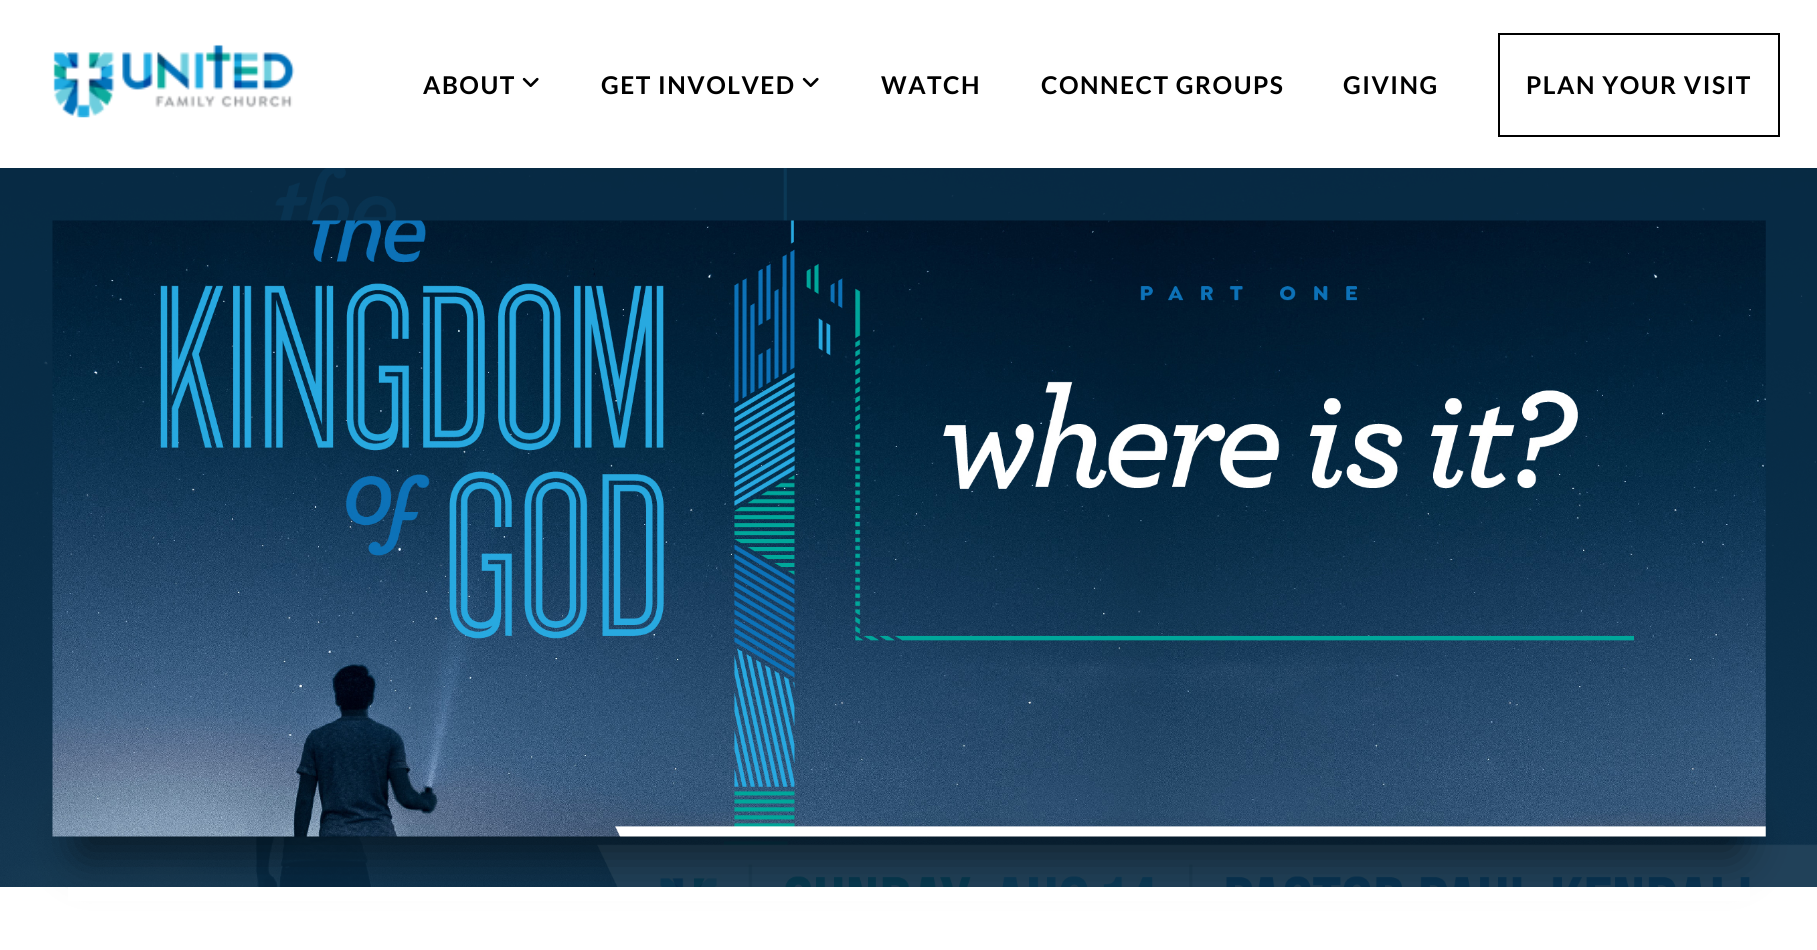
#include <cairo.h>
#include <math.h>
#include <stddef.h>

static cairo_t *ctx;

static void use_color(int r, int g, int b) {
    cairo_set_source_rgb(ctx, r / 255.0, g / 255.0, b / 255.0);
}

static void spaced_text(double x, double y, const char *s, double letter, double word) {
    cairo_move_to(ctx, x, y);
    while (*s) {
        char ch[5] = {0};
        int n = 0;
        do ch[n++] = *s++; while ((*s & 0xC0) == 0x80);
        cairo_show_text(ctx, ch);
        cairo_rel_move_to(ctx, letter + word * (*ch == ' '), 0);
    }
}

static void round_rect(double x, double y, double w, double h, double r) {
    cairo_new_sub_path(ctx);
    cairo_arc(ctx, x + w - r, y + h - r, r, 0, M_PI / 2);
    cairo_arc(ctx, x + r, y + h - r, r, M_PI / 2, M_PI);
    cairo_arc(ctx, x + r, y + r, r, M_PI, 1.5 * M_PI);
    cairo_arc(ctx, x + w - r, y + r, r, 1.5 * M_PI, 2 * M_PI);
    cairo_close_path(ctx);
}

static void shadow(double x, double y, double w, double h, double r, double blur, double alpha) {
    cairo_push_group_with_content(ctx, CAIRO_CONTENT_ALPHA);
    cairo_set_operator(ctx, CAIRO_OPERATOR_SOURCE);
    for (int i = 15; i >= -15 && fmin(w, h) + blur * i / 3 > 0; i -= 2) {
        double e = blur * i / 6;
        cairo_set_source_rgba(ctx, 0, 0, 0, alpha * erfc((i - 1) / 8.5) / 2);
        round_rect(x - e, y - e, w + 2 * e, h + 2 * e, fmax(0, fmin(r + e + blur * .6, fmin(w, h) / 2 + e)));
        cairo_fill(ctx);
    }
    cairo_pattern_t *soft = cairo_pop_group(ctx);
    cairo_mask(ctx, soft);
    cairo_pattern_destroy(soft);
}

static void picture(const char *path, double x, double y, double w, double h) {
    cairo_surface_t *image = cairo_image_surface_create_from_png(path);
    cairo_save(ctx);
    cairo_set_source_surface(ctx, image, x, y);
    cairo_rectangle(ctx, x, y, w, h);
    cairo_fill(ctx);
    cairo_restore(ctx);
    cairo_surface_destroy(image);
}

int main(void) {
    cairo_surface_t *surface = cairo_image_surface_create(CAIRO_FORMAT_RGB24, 1817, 950);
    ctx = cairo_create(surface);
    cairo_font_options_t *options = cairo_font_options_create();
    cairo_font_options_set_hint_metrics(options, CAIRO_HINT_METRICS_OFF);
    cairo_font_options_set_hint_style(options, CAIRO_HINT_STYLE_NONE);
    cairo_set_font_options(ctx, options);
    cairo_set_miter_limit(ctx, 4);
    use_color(255, 255, 255);
    cairo_paint(ctx);
    picture("img1.png", 53, 44, 242, 74);
    cairo_select_font_face(ctx, "Lato", CAIRO_FONT_SLANT_NORMAL, CAIRO_FONT_WEIGHT_BOLD);
    cairo_set_font_size(ctx, 24.5);
    use_color(0, 0, 0);
    spaced_text(423, 94, "ABOUT", 1.5, 0);
    picture("img2.png", 522, 77, 17, 10);
    spaced_text(601, 94, "GET INVOLVED", 1.5, 0);
    picture("img2.png", 802, 77, 17, 10);
    spaced_text(881, 94, "WATCH", 1.5, 0);
    spaced_text(1041, 94, "CONNECT GROUPS", 1.5, 0);
    spaced_text(1343, 94, "GIVING", 1.5, 0);
    cairo_rectangle(ctx, 1499, 34, 280, 102);
    cairo_stroke(ctx);
    spaced_text(1526, 94, "PLAN YOUR VISIT", 1.5, 0);
    picture("img3.png", 0, 168, 1817, 719);
    use_color(0, 0, 0);
    shadow(77, 817, 1664, 39, 19.5, 22, 0.5);
    picture("img4.png", 52, 220, 1714, 617);
    use_color(255, 255, 255);
    cairo_rectangle(ctx, 68, 887, 1682, 14);
    cairo_fill(ctx);
    cairo_surface_write_to_png(surface, "result.png");
    cairo_font_options_destroy(options);
    cairo_destroy(ctx);
    cairo_surface_destroy(surface);
    return 0;
}
